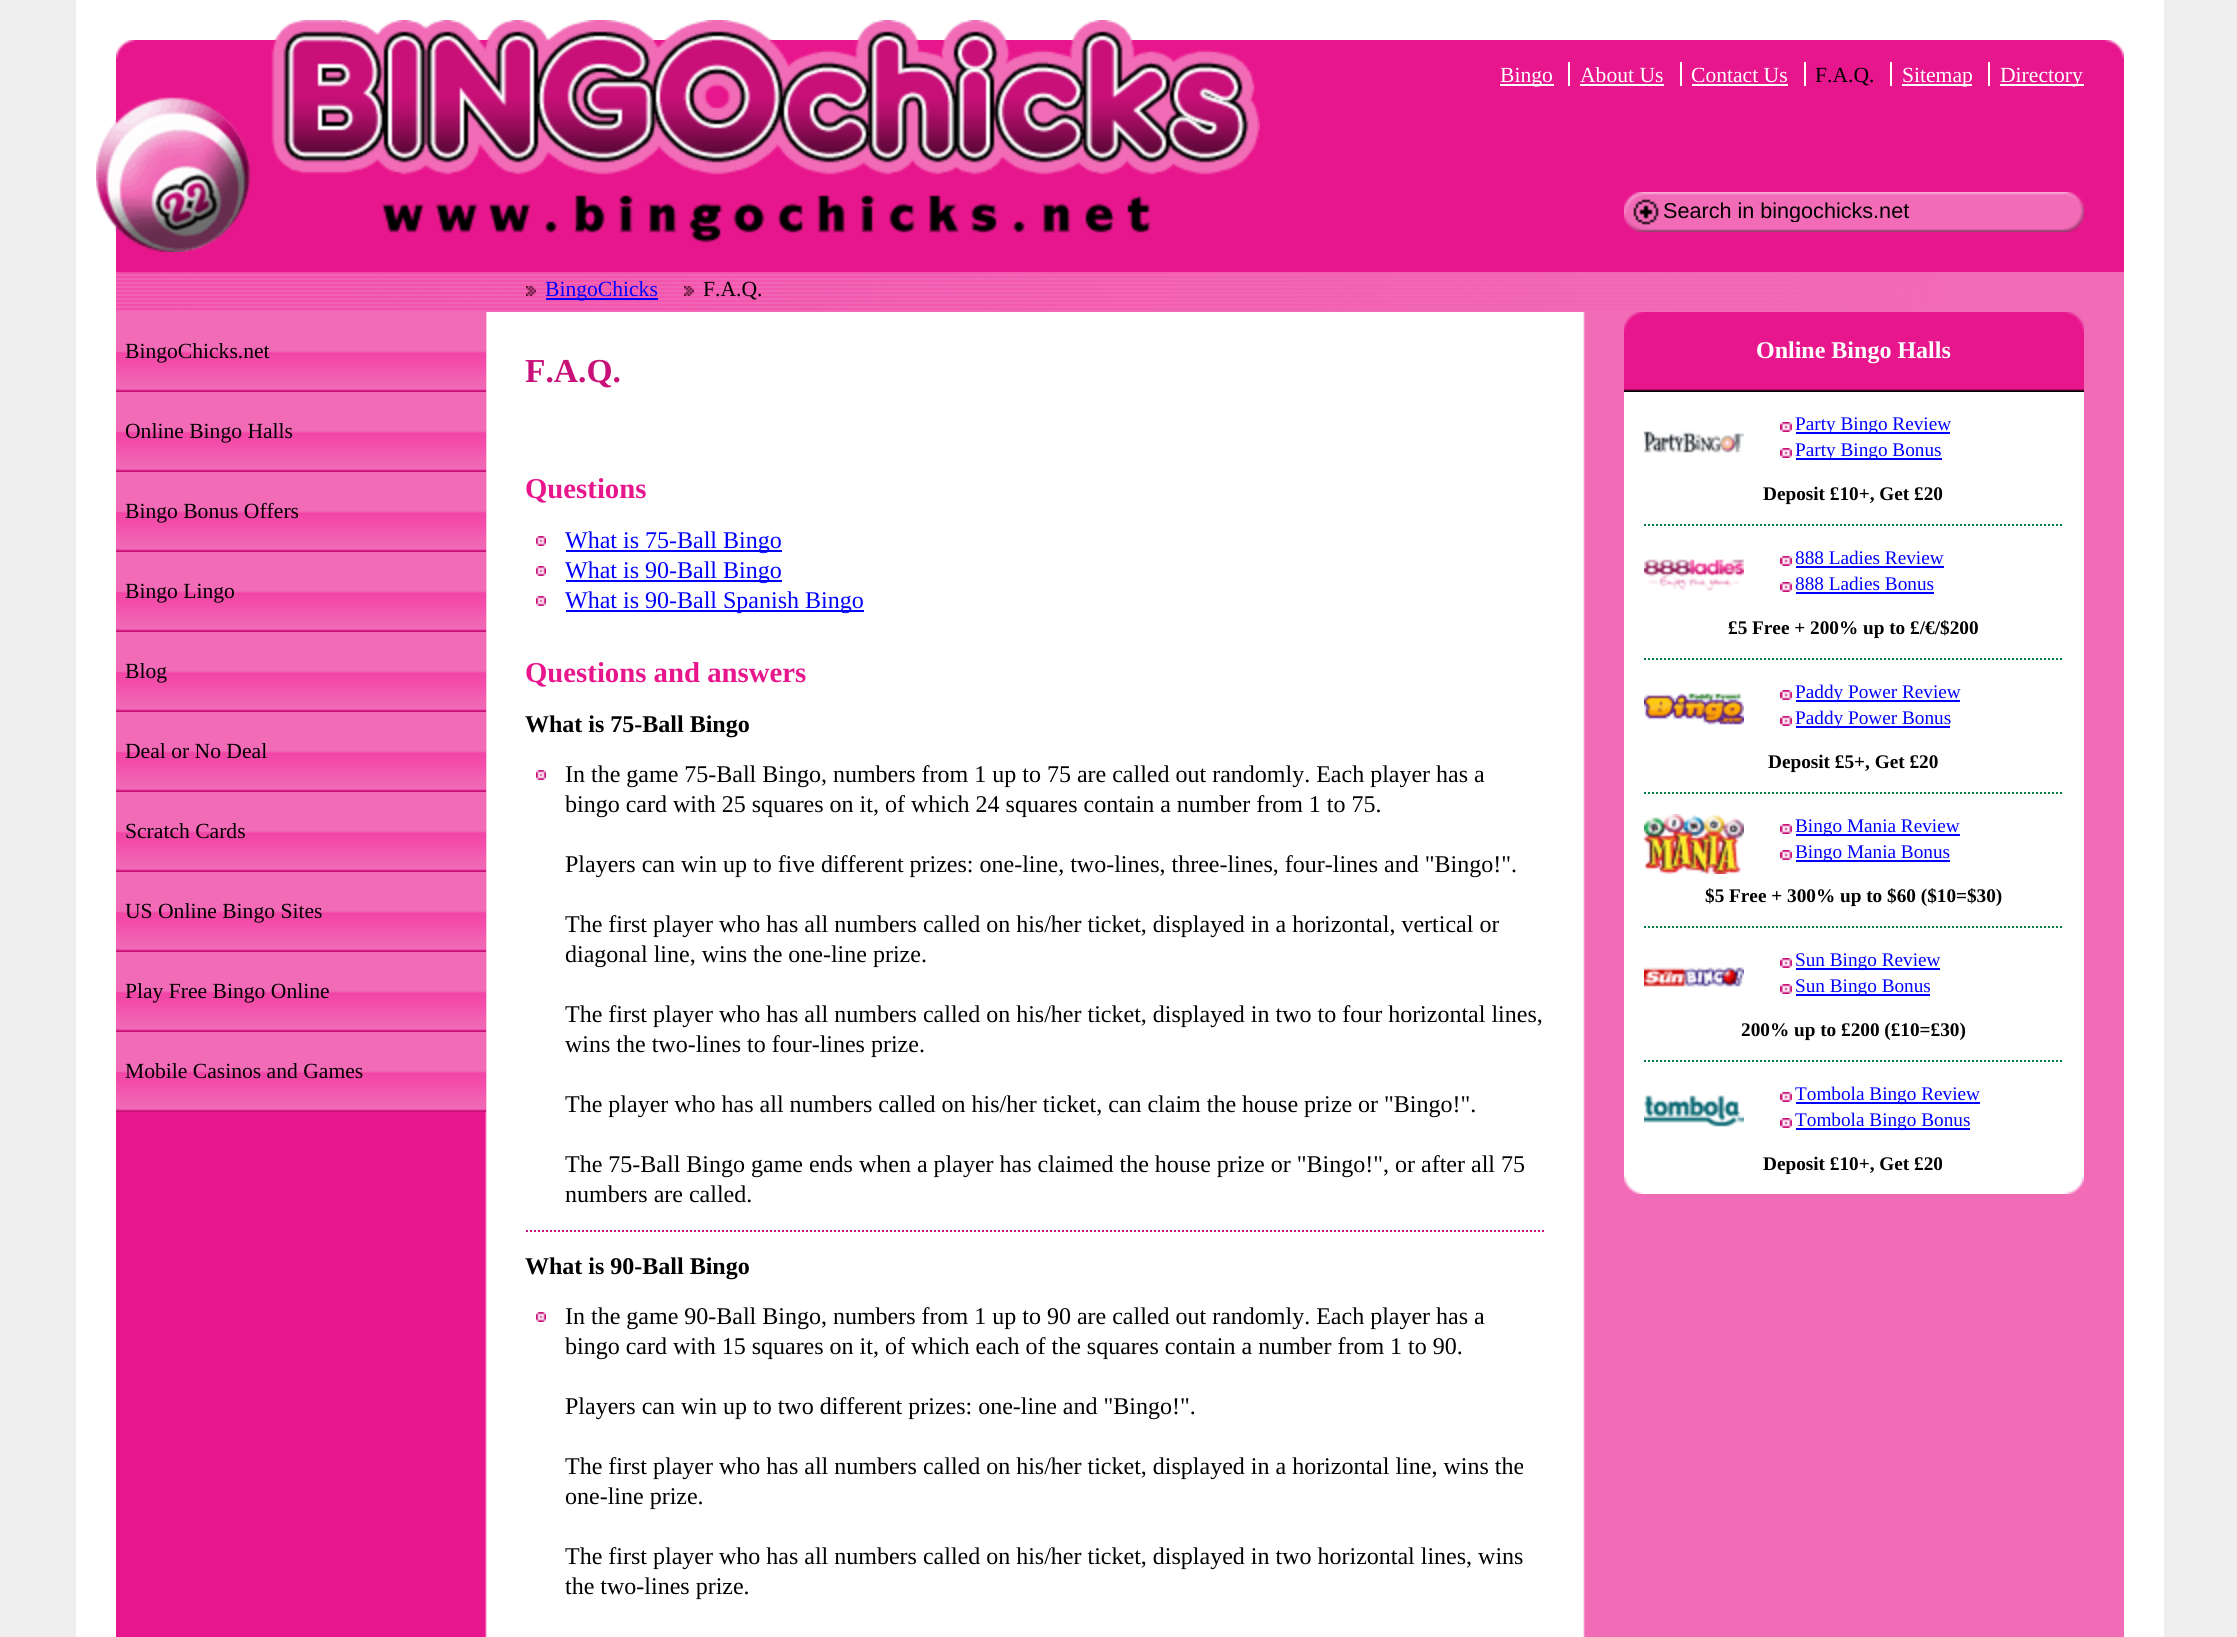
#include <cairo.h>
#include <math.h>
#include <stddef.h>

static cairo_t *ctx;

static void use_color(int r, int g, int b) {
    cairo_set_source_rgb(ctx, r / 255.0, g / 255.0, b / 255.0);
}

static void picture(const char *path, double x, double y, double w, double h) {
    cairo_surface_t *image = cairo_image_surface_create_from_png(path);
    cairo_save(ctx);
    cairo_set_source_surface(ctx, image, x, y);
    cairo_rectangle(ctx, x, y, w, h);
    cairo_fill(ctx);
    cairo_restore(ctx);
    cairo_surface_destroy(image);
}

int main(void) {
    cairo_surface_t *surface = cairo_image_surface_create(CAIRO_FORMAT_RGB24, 2237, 1637);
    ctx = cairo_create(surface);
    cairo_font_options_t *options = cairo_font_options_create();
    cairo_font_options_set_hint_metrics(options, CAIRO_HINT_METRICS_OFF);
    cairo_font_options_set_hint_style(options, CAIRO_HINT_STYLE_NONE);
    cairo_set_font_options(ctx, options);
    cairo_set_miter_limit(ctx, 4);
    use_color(238, 238, 238);
    cairo_paint(ctx);
    use_color(255, 255, 255);
    cairo_rectangle(ctx, 76, 0, 2088, 1637);
    cairo_fill(ctx);
    use_color(232, 22, 141);
    cairo_rectangle(ctx, 116, 60, 2008, 212);
    cairo_fill(ctx);
    picture("img1.png", 116, 40, 2008, 20);
    picture("img2.png", 96, 20, 1164, 232);
    use_color(255, 255, 255);
    cairo_rectangle(ctx, 1500, 84, 54, 2);
    cairo_fill(ctx);
    cairo_select_font_face(ctx, "Liberation Serif", CAIRO_FONT_SLANT_NORMAL, CAIRO_FONT_WEIGHT_NORMAL);
    cairo_set_font_size(ctx, 21.6);
    cairo_move_to(ctx, 1500, 82);
    cairo_show_text(ctx, "Bingo");
    cairo_rectangle(ctx, 1568, 62, 2, 24);
    cairo_fill(ctx);
    cairo_move_to(ctx, 1580, 82);
    cairo_show_text(ctx, "About Us");
    cairo_rectangle(ctx, 1680, 62, 2, 24);
    cairo_fill(ctx);
    cairo_rectangle(ctx, 1580, 84, 84, 2);
    cairo_fill(ctx);
    cairo_move_to(ctx, 1691, 82);
    cairo_show_text(ctx, "Contact Us");
    cairo_rectangle(ctx, 1804, 62, 2, 24);
    cairo_fill(ctx);
    cairo_rectangle(ctx, 1692, 84, 96, 2);
    cairo_fill(ctx);
    use_color(0, 0, 0);
    cairo_move_to(ctx, 1815, 82);
    cairo_show_text(ctx, "F.A.Q.");
    use_color(255, 255, 255);
    cairo_rectangle(ctx, 1890, 62, 2, 24);
    cairo_fill(ctx);
    cairo_rectangle(ctx, 1902, 84, 70, 2);
    cairo_fill(ctx);
    cairo_move_to(ctx, 1902, 82);
    cairo_show_text(ctx, "Sitemap");
    cairo_rectangle(ctx, 1988, 62, 2, 24);
    cairo_fill(ctx);
    cairo_rectangle(ctx, 2000, 84, 84, 2);
    cairo_fill(ctx);
    cairo_move_to(ctx, 2000, 82);
    cairo_show_text(ctx, "Directory");
    picture("img3.png", 1624, 192, 460, 40);
    cairo_save(ctx);
    cairo_rectangle(ctx, 1664, 198, 400, 24);
    cairo_clip(ctx);
    cairo_select_font_face(ctx, "Liberation Sans", CAIRO_FONT_SLANT_NORMAL, CAIRO_FONT_WEIGHT_NORMAL);
    use_color(0, 0, 0);
    cairo_move_to(ctx, 1663, 218);
    cairo_show_text(ctx, "Search in bingochicks.net");
    cairo_restore(ctx);
    picture("img4.png", 116, 272, 2008, 40);
    picture("img5.png", 526, 286, 10, 10);
    use_color(0, 0, 255);
    cairo_rectangle(ctx, 546, 298, 112, 2);
    cairo_fill(ctx);
    cairo_move_to(ctx, 545, 296);
    cairo_show_text(ctx, "BingoChicks");
    picture("img6.png", 684, 286, 10, 10);
    use_color(0, 0, 0);
    cairo_move_to(ctx, 703, 296);
    cairo_show_text(ctx, "F.A.Q.");
    picture("img7.png", 116, 312, 2008, 1325);
    picture("img8.png", 116, 312, 370, 80);
    cairo_move_to(ctx, 125, 358);
    cairo_show_text(ctx, "BingoChicks.net");
    picture("img8.png", 116, 392, 370, 80);
    cairo_move_to(ctx, 125, 438);
    cairo_show_text(ctx, "Online Bingo Halls");
    picture("img8.png", 116, 472, 370, 80);
    cairo_move_to(ctx, 125, 518);
    cairo_show_text(ctx, "Bingo Bonus Offers");
    picture("img8.png", 116, 552, 370, 80);
    cairo_move_to(ctx, 125, 598);
    cairo_show_text(ctx, "Bingo Lingo");
    picture("img8.png", 116, 632, 370, 80);
    cairo_move_to(ctx, 125, 678);
    cairo_show_text(ctx, "Blog");
    picture("img8.png", 116, 712, 370, 80);
    cairo_move_to(ctx, 125, 758);
    cairo_show_text(ctx, "Deal or No Deal");
    picture("img8.png", 116, 792, 370, 80);
    cairo_move_to(ctx, 125, 838);
    cairo_show_text(ctx, "Scratch Cards");
    picture("img8.png", 116, 872, 370, 80);
    cairo_move_to(ctx, 125, 918);
    cairo_show_text(ctx, "US Online Bingo Sites");
    picture("img8.png", 116, 952, 370, 80);
    cairo_move_to(ctx, 125, 998);
    cairo_show_text(ctx, "Play Free Bingo Online");
    picture("img8.png", 116, 1032, 370, 80);
    cairo_move_to(ctx, 125, 1078);
    cairo_show_text(ctx, "Mobile Casinos and Games");
    cairo_select_font_face(ctx, "Liberation Serif", CAIRO_FONT_SLANT_NORMAL, CAIRO_FONT_WEIGHT_BOLD);
    cairo_set_font_size(ctx, 33.5);
    use_color(200, 16, 120);
    cairo_move_to(ctx, 525, 382);
    cairo_show_text(ctx, "F.A.Q.");
    cairo_set_font_size(ctx, 28.75);
    use_color(232, 22, 141);
    cairo_move_to(ctx, 525, 498);
    cairo_show_text(ctx, "Questions");
    picture("img9.png", 536, 536, 10, 10);
    use_color(0, 0, 255);
    cairo_rectangle(ctx, 566, 550, 216, 2);
    cairo_fill(ctx);
    cairo_select_font_face(ctx, "Liberation Serif", CAIRO_FONT_SLANT_NORMAL, CAIRO_FONT_WEIGHT_NORMAL);
    cairo_set_font_size(ctx, 24);
    cairo_move_to(ctx, 565, 548);
    cairo_show_text(ctx, "What is 75-Ball Bingo");
    picture("img9.png", 536, 566, 10, 10);
    cairo_rectangle(ctx, 566, 580, 216, 2);
    cairo_fill(ctx);
    cairo_move_to(ctx, 565, 578);
    cairo_show_text(ctx, "What is 90-Ball Bingo");
    picture("img9.png", 536, 596, 10, 10);
    cairo_rectangle(ctx, 566, 610, 298, 2);
    cairo_fill(ctx);
    cairo_move_to(ctx, 565, 608);
    cairo_show_text(ctx, "What is 90-Ball Spanish Bingo");
    cairo_select_font_face(ctx, "Liberation Serif", CAIRO_FONT_SLANT_NORMAL, CAIRO_FONT_WEIGHT_BOLD);
    cairo_set_font_size(ctx, 28.75);
    use_color(232, 22, 141);
    cairo_move_to(ctx, 525, 682);
    cairo_show_text(ctx, "Questions and answers");
    cairo_set_font_size(ctx, 24);
    use_color(0, 0, 0);
    cairo_move_to(ctx, 525, 732);
    cairo_show_text(ctx, "What is 75-Ball Bingo");
    picture("img9.png", 536, 770, 10, 10);
    cairo_new_path(ctx);
    cairo_move_to(ctx, 526, 1231);
    cairo_line_to(ctx, 1544, 1231);
    use_color(200, 16, 120);
    cairo_set_dash(ctx, (double[]){2, 2}, 2, 0);
    cairo_stroke(ctx);
    cairo_select_font_face(ctx, "Liberation Serif", CAIRO_FONT_SLANT_NORMAL, CAIRO_FONT_WEIGHT_NORMAL);
    use_color(0, 0, 0);
    cairo_move_to(ctx, 565, 782);
    cairo_show_text(ctx, "In the game 75-Ball Bingo, numbers from 1 up to 75 are called out randomly. Each player has a");
    cairo_move_to(ctx, 565, 812);
    cairo_show_text(ctx, "bingo card with 25 squares on it, of which 24 squares contain a number from 1 to 75.");
    cairo_move_to(ctx, 565, 872);
    cairo_show_text(ctx, "Players can win up to five different prizes: one-line, two-lines, three-lines, four-lines and \"Bingo!\".");
    cairo_move_to(ctx, 565, 932);
    cairo_show_text(ctx, "The first player who has all numbers called on his/her ticket, displayed in a horizontal, vertical or");
    cairo_move_to(ctx, 565, 962);
    cairo_show_text(ctx, "diagonal line, wins the one-line prize.");
    cairo_move_to(ctx, 565, 1022);
    cairo_show_text(ctx, "The first player who has all numbers called on his/her ticket, displayed in two to four horizontal lines,");
    cairo_move_to(ctx, 565, 1052);
    cairo_show_text(ctx, "wins the two-lines to four-lines prize.");
    cairo_move_to(ctx, 565, 1112);
    cairo_show_text(ctx, "The player who has all numbers called on his/her ticket, can claim the house prize or \"Bingo!\".");
    cairo_move_to(ctx, 565, 1172);
    cairo_show_text(ctx, "The 75-Ball Bingo game ends when a player has claimed the house prize or \"Bingo!\", or after all 75");
    cairo_move_to(ctx, 565, 1202);
    cairo_show_text(ctx, "numbers are called.");
    cairo_select_font_face(ctx, "Liberation Serif", CAIRO_FONT_SLANT_NORMAL, CAIRO_FONT_WEIGHT_BOLD);
    cairo_move_to(ctx, 525, 1274);
    cairo_show_text(ctx, "What is 90-Ball Bingo");
    picture("img9.png", 536, 1312, 10, 10);
    cairo_select_font_face(ctx, "Liberation Serif", CAIRO_FONT_SLANT_NORMAL, CAIRO_FONT_WEIGHT_NORMAL);
    cairo_move_to(ctx, 565, 1324);
    cairo_show_text(ctx, "In the game 90-Ball Bingo, numbers from 1 up to 90 are called out randomly. Each player has a");
    cairo_move_to(ctx, 565, 1354);
    cairo_show_text(ctx, "bingo card with 15 squares on it, of which each of the squares contain a number from 1 to 90.");
    cairo_move_to(ctx, 565, 1414);
    cairo_show_text(ctx, "Players can win up to two different prizes: one-line and \"Bingo!\".");
    cairo_move_to(ctx, 565, 1474);
    cairo_show_text(ctx, "The first player who has all numbers called on his/her ticket, displayed in a horizontal line, wins the");
    cairo_move_to(ctx, 565, 1504);
    cairo_show_text(ctx, "one-line prize.");
    cairo_move_to(ctx, 565, 1564);
    cairo_show_text(ctx, "The first player who has all numbers called on his/her ticket, displayed in two horizontal lines, wins");
    cairo_move_to(ctx, 565, 1594);
    cairo_show_text(ctx, "the two-lines prize.");
    picture("img10.png", 1624, 312, 460, 80);
    cairo_select_font_face(ctx, "Liberation Serif", CAIRO_FONT_SLANT_NORMAL, CAIRO_FONT_WEIGHT_BOLD);
    use_color(255, 255, 255);
    cairo_move_to(ctx, 1756, 358);
    cairo_show_text(ctx, "Online Bingo Halls");
    cairo_rectangle(ctx, 1624, 392, 460, 782);
    cairo_fill(ctx);
    picture("img11.png", 1624, 1174, 460, 20);
    cairo_new_path(ctx);
    cairo_move_to(ctx, 1644, 525);
    cairo_line_to(ctx, 2064, 525);
    use_color(1, 126, 64);
    cairo_stroke(ctx);
    picture("img12.png", 1644, 431, 100, 22);
    picture("img13.png", 1780, 422, 12, 10);
    use_color(0, 0, 255);
    cairo_rectangle(ctx, 1796, 432, 154, 2);
    cairo_fill(ctx);
    cairo_save(ctx);
    cairo_rectangle(ctx, 1780, 412, 284, 22);
    cairo_clip(ctx);
    cairo_select_font_face(ctx, "Liberation Serif", CAIRO_FONT_SLANT_NORMAL, CAIRO_FONT_WEIGHT_NORMAL);
    cairo_set_font_size(ctx, 19.25);
    cairo_move_to(ctx, 1795, 430);
    cairo_show_text(ctx, "Party Bingo Review");
    cairo_restore(ctx);
    picture("img13.png", 1780, 448, 12, 10);
    cairo_rectangle(ctx, 1796, 458, 146, 2);
    cairo_fill(ctx);
    cairo_save(ctx);
    cairo_rectangle(ctx, 1780, 438, 284, 22);
    cairo_clip(ctx);
    cairo_select_font_face(ctx, "Liberation Serif", CAIRO_FONT_SLANT_NORMAL, CAIRO_FONT_WEIGHT_NORMAL);
    cairo_set_font_size(ctx, 19.25);
    cairo_move_to(ctx, 1795, 456);
    cairo_show_text(ctx, "Party Bingo Bonus");
    cairo_restore(ctx);
    cairo_set_font_size(ctx, 19.25);
    use_color(0, 0, 0);
    cairo_move_to(ctx, 1763, 500);
    cairo_show_text(ctx, "Deposit £10+, Get £20");
    cairo_new_path(ctx);
    cairo_move_to(ctx, 1644, 659);
    cairo_line_to(ctx, 2064, 659);
    use_color(1, 126, 64);
    cairo_stroke(ctx);
    picture("img14.png", 1644, 559, 100, 32);
    picture("img13.png", 1780, 556, 12, 10);
    cairo_select_font_face(ctx, "Liberation Serif", CAIRO_FONT_SLANT_NORMAL, CAIRO_FONT_WEIGHT_NORMAL);
    use_color(0, 0, 255);
    cairo_move_to(ctx, 1795, 564);
    cairo_show_text(ctx, "888 Ladies Review");
    cairo_rectangle(ctx, 1796, 566, 148, 2);
    cairo_fill(ctx);
    picture("img13.png", 1780, 582, 12, 10);
    cairo_move_to(ctx, 1795, 590);
    cairo_show_text(ctx, "888 Ladies Bonus");
    cairo_rectangle(ctx, 1796, 592, 138, 2);
    cairo_fill(ctx);
    cairo_select_font_face(ctx, "Liberation Serif", CAIRO_FONT_SLANT_NORMAL, CAIRO_FONT_WEIGHT_BOLD);
    use_color(0, 0, 0);
    cairo_move_to(ctx, 1728, 634);
    cairo_show_text(ctx, "£5 Free + 200% up to £/€/$200");
    cairo_new_path(ctx);
    cairo_move_to(ctx, 1644, 793);
    cairo_line_to(ctx, 2064, 793);
    use_color(1, 126, 64);
    cairo_stroke(ctx);
    picture("img15.png", 1644, 693, 100, 32);
    picture("img13.png", 1780, 690, 12, 10);
    use_color(0, 0, 255);
    cairo_rectangle(ctx, 1796, 700, 164, 2);
    cairo_fill(ctx);
    cairo_select_font_face(ctx, "Liberation Serif", CAIRO_FONT_SLANT_NORMAL, CAIRO_FONT_WEIGHT_NORMAL);
    cairo_move_to(ctx, 1795, 698);
    cairo_show_text(ctx, "Paddy Power Review");
    picture("img13.png", 1780, 716, 12, 10);
    cairo_rectangle(ctx, 1796, 726, 154, 2);
    cairo_fill(ctx);
    cairo_move_to(ctx, 1795, 724);
    cairo_show_text(ctx, "Paddy Power Bonus");
    cairo_select_font_face(ctx, "Liberation Serif", CAIRO_FONT_SLANT_NORMAL, CAIRO_FONT_WEIGHT_BOLD);
    use_color(0, 0, 0);
    cairo_move_to(ctx, 1768, 768);
    cairo_show_text(ctx, "Deposit £5+, Get £20");
    cairo_new_path(ctx);
    cairo_move_to(ctx, 1644, 927);
    cairo_line_to(ctx, 2064, 927);
    use_color(1, 126, 64);
    cairo_stroke(ctx);
    picture("img16.png", 1644, 814, 100, 60);
    picture("img13.png", 1780, 824, 12, 10);
    use_color(0, 0, 255);
    cairo_rectangle(ctx, 1796, 834, 164, 2);
    cairo_fill(ctx);
    cairo_select_font_face(ctx, "Liberation Serif", CAIRO_FONT_SLANT_NORMAL, CAIRO_FONT_WEIGHT_NORMAL);
    cairo_move_to(ctx, 1795, 832);
    cairo_show_text(ctx, "Bingo Mania Review");
    picture("img13.png", 1780, 850, 12, 10);
    cairo_rectangle(ctx, 1796, 860, 154, 2);
    cairo_fill(ctx);
    cairo_move_to(ctx, 1795, 858);
    cairo_show_text(ctx, "Bingo Mania Bonus");
    cairo_select_font_face(ctx, "Liberation Serif", CAIRO_FONT_SLANT_NORMAL, CAIRO_FONT_WEIGHT_BOLD);
    use_color(0, 0, 0);
    cairo_move_to(ctx, 1705, 902);
    cairo_show_text(ctx, "$5 Free + 300% up to $60 ($10=$30)");
    cairo_new_path(ctx);
    cairo_move_to(ctx, 1644, 1061);
    cairo_line_to(ctx, 2064, 1061);
    use_color(1, 126, 64);
    cairo_stroke(ctx);
    picture("img17.png", 1644, 967, 100, 20);
    picture("img13.png", 1780, 958, 12, 10);
    use_color(0, 0, 255);
    cairo_rectangle(ctx, 1796, 968, 144, 2);
    cairo_fill(ctx);
    cairo_select_font_face(ctx, "Liberation Serif", CAIRO_FONT_SLANT_NORMAL, CAIRO_FONT_WEIGHT_NORMAL);
    cairo_move_to(ctx, 1795, 966);
    cairo_show_text(ctx, "Sun Bingo Review");
    picture("img13.png", 1780, 984, 12, 10);
    cairo_rectangle(ctx, 1796, 994, 134, 2);
    cairo_fill(ctx);
    cairo_move_to(ctx, 1795, 992);
    cairo_show_text(ctx, "Sun Bingo Bonus");
    cairo_select_font_face(ctx, "Liberation Serif", CAIRO_FONT_SLANT_NORMAL, CAIRO_FONT_WEIGHT_BOLD);
    use_color(0, 0, 0);
    cairo_move_to(ctx, 1741, 1036);
    cairo_show_text(ctx, "200% up to £200 (£10=£30)");
    picture("img18.png", 1644, 1095, 100, 32);
    picture("img13.png", 1780, 1092, 12, 10);
    use_color(0, 0, 255);
    cairo_rectangle(ctx, 1796, 1102, 184, 2);
    cairo_fill(ctx);
    cairo_select_font_face(ctx, "Liberation Serif", CAIRO_FONT_SLANT_NORMAL, CAIRO_FONT_WEIGHT_NORMAL);
    cairo_move_to(ctx, 1795, 1100);
    cairo_show_text(ctx, "Tombola Bingo Review");
    picture("img13.png", 1780, 1118, 12, 10);
    cairo_rectangle(ctx, 1796, 1128, 174, 2);
    cairo_fill(ctx);
    cairo_move_to(ctx, 1795, 1126);
    cairo_show_text(ctx, "Tombola Bingo Bonus");
    cairo_save(ctx);
    cairo_rectangle(ctx, 1644, 1062, 420, 112);
    cairo_clip(ctx);
    cairo_select_font_face(ctx, "Liberation Serif", CAIRO_FONT_SLANT_NORMAL, CAIRO_FONT_WEIGHT_BOLD);
    use_color(0, 0, 0);
    cairo_move_to(ctx, 1763, 1170);
    cairo_show_text(ctx, "Deposit £10+, Get £20");
    cairo_restore(ctx);
    cairo_surface_write_to_png(surface, "result.png");
    cairo_font_options_destroy(options);
    cairo_destroy(ctx);
    cairo_surface_destroy(surface);
    return 0;
}
